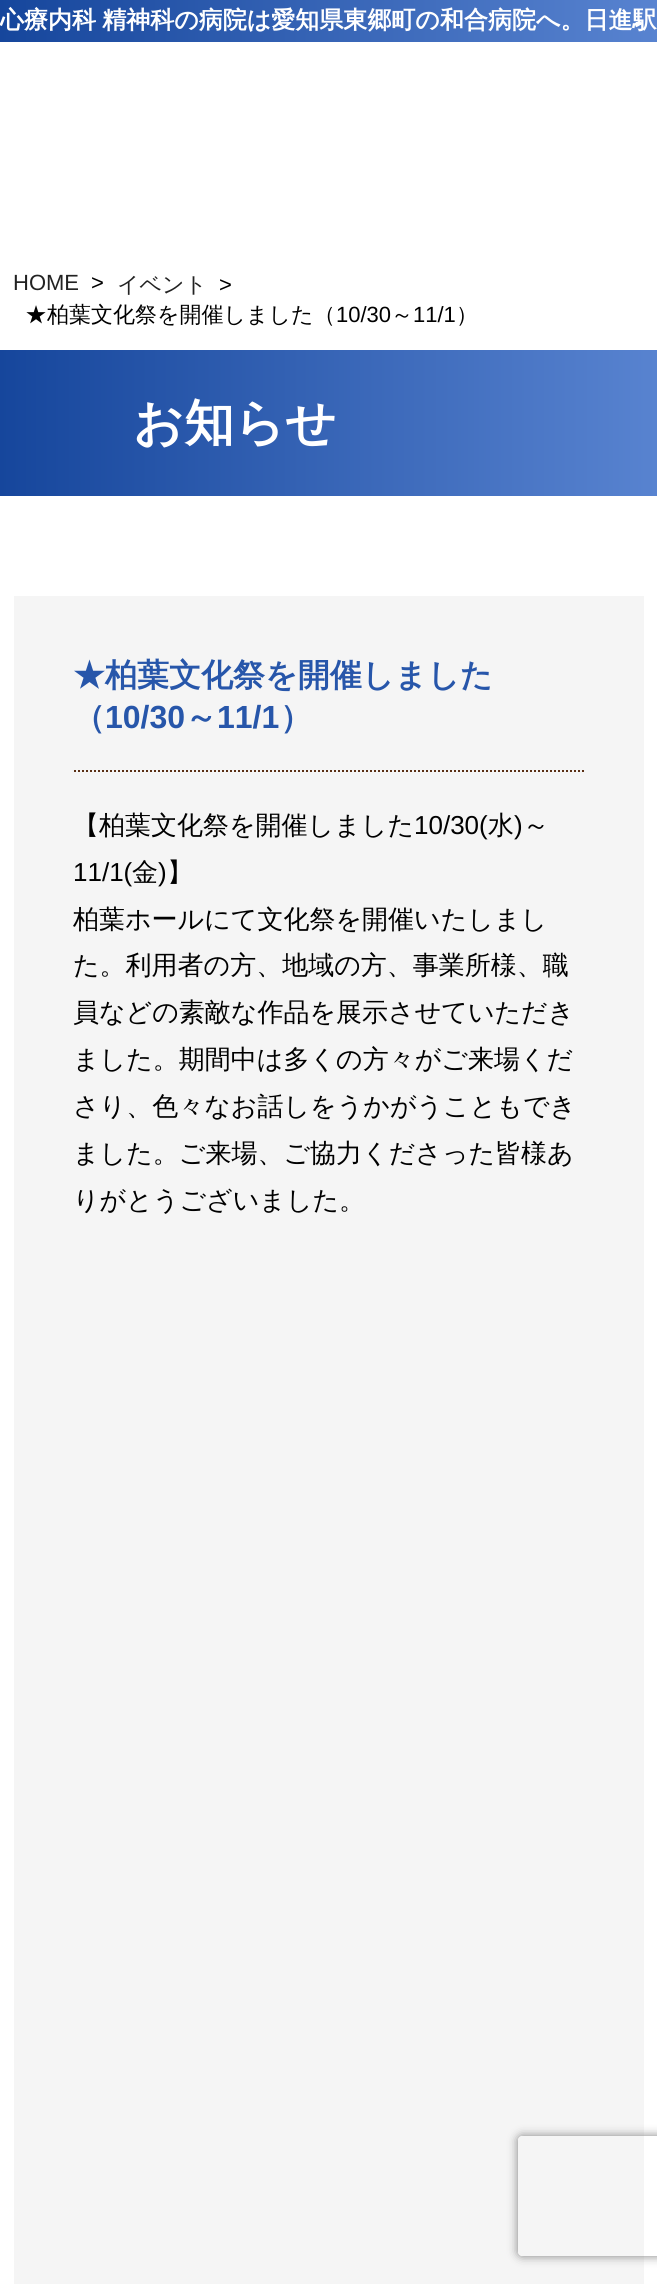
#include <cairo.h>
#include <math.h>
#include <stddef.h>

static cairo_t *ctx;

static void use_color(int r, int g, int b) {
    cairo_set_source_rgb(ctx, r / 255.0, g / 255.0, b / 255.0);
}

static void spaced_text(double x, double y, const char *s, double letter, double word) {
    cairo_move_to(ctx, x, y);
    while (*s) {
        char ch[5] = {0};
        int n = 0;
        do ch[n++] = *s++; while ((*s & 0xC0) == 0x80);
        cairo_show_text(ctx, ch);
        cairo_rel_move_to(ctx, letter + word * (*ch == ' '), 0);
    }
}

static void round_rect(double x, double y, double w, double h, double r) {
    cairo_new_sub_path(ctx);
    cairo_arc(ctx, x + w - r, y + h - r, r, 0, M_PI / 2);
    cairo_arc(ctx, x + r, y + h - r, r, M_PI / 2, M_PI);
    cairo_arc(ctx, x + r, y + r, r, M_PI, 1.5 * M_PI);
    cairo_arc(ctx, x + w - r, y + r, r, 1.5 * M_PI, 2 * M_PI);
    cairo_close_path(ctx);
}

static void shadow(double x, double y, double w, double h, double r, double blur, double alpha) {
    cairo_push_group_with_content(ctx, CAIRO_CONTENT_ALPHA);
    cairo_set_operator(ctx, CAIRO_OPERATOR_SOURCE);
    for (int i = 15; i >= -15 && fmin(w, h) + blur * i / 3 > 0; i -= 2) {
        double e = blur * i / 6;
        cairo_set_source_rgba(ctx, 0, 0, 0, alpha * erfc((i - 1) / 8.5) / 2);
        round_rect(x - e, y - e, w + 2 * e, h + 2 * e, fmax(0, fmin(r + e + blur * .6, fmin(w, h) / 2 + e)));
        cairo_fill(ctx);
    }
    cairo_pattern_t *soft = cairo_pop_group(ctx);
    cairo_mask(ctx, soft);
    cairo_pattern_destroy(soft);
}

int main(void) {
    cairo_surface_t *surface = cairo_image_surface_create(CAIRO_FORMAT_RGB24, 657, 2284);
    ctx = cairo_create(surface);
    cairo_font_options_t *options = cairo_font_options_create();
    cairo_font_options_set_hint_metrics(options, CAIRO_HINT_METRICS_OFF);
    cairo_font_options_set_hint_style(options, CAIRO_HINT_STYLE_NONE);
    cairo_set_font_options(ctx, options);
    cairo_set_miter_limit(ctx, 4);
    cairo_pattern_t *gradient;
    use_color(255, 255, 255);
    cairo_paint(ctx);
    gradient = cairo_pattern_create_linear(0, 21, 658, 21);
    cairo_pattern_add_color_stop_rgba(gradient, 0, 0.086, 0.275, 0.612, 1);
    cairo_pattern_add_color_stop_rgba(gradient, 1, 0.345, 0.514, 0.816, 1);
    cairo_set_source(ctx, gradient);
    cairo_pattern_destroy(gradient);
    cairo_rectangle(ctx, 0, 0, 657, 42);
    cairo_fill(ctx);
    cairo_select_font_face(ctx, "WenQuanYi Zen Hei", CAIRO_FONT_SLANT_NORMAL, CAIRO_FONT_WEIGHT_BOLD);
    cairo_set_font_size(ctx, 24);
    use_color(255, 255, 255);
    spaced_text(0, 28, "心療内科 精神科の病院は愛知県東郷町の和合病院へ。日進駅", 0, -1);
    cairo_select_font_face(ctx, "Liberation Sans", CAIRO_FONT_SLANT_NORMAL, CAIRO_FONT_WEIGHT_NORMAL);
    cairo_set_font_size(ctx, 22);
    use_color(34, 34, 34);
    cairo_move_to(ctx, 13, 290);
    cairo_show_text(ctx, "HOME");
    use_color(0, 0, 0);
    cairo_move_to(ctx, 91, 290);
    cairo_show_text(ctx, ">");
    cairo_select_font_face(ctx, "WenQuanYi Zen Hei Medium", CAIRO_FONT_SLANT_NORMAL, CAIRO_FONT_WEIGHT_NORMAL);
    use_color(34, 34, 34);
    cairo_move_to(ctx, 117, 292);
    cairo_show_text(ctx, "イベント");
    cairo_select_font_face(ctx, "Liberation Sans", CAIRO_FONT_SLANT_NORMAL, CAIRO_FONT_WEIGHT_NORMAL);
    use_color(0, 0, 0);
    cairo_move_to(ctx, 219, 292);
    cairo_show_text(ctx, ">");
    cairo_select_font_face(ctx, "WenQuanYi Zen Hei Medium", CAIRO_FONT_SLANT_NORMAL, CAIRO_FONT_WEIGHT_NORMAL);
    cairo_move_to(ctx, 25, 322);
    cairo_show_text(ctx, "★柏葉文化祭を開催しました（");
    cairo_select_font_face(ctx, "Liberation Sans", CAIRO_FONT_SLANT_NORMAL, CAIRO_FONT_WEIGHT_NORMAL);
    cairo_move_to(ctx, 336, 322);
    cairo_show_text(ctx, "10/30");
    cairo_select_font_face(ctx, "WenQuanYi Zen Hei Medium", CAIRO_FONT_SLANT_NORMAL, CAIRO_FONT_WEIGHT_NORMAL);
    cairo_move_to(ctx, 391, 322);
    cairo_show_text(ctx, "～");
    cairo_select_font_face(ctx, "Liberation Sans", CAIRO_FONT_SLANT_NORMAL, CAIRO_FONT_WEIGHT_NORMAL);
    cairo_move_to(ctx, 413, 322);
    cairo_show_text(ctx, "11/1");
    cairo_select_font_face(ctx, "WenQuanYi Zen Hei Medium", CAIRO_FONT_SLANT_NORMAL, CAIRO_FONT_WEIGHT_NORMAL);
    cairo_move_to(ctx, 456, 322);
    cairo_show_text(ctx, "）");
    gradient = cairo_pattern_create_linear(0, 423, 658, 423);
    cairo_pattern_add_color_stop_rgba(gradient, 0, 0.086, 0.275, 0.612, 1);
    cairo_pattern_add_color_stop_rgba(gradient, 1, 0.345, 0.514, 0.816, 1);
    cairo_set_source(ctx, gradient);
    cairo_pattern_destroy(gradient);
    cairo_rectangle(ctx, 0, 350, 657, 146);
    cairo_fill(ctx);
    cairo_select_font_face(ctx, "WenQuanYi Zen Hei", CAIRO_FONT_SLANT_NORMAL, CAIRO_FONT_WEIGHT_BOLD);
    cairo_set_font_size(ctx, 50);
    use_color(255, 255, 255);
    cairo_move_to(ctx, 133, 440);
    cairo_show_text(ctx, "お知らせ");
    use_color(245, 245, 245);
    cairo_rectangle(ctx, 14, 596, 630, 1688);
    cairo_fill(ctx);
    cairo_new_path(ctx);
    cairo_move_to(ctx, 74, 771);
    cairo_line_to(ctx, 584, 771);
    use_color(90, 47, 20);
    cairo_set_dash(ctx, (double[]){2, 2}, 2, 0);
    cairo_stroke(ctx);
    cairo_set_font_size(ctx, 32);
    use_color(39, 86, 170);
    cairo_move_to(ctx, 73, 686);
    cairo_show_text(ctx, "★柏葉文化祭を開催しました");
    cairo_move_to(ctx, 73, 728);
    cairo_show_text(ctx, "（");
    cairo_select_font_face(ctx, "Liberation Sans", CAIRO_FONT_SLANT_NORMAL, CAIRO_FONT_WEIGHT_BOLD);
    cairo_move_to(ctx, 105, 728);
    cairo_show_text(ctx, "10/30");
    cairo_select_font_face(ctx, "WenQuanYi Zen Hei", CAIRO_FONT_SLANT_NORMAL, CAIRO_FONT_WEIGHT_BOLD);
    cairo_move_to(ctx, 185, 728);
    cairo_show_text(ctx, "～");
    cairo_select_font_face(ctx, "Liberation Sans", CAIRO_FONT_SLANT_NORMAL, CAIRO_FONT_WEIGHT_BOLD);
    cairo_move_to(ctx, 217, 728);
    cairo_show_text(ctx, "11/1");
    cairo_select_font_face(ctx, "WenQuanYi Zen Hei", CAIRO_FONT_SLANT_NORMAL, CAIRO_FONT_WEIGHT_BOLD);
    cairo_move_to(ctx, 280, 728);
    cairo_show_text(ctx, "）");
    cairo_select_font_face(ctx, "WenQuanYi Zen Hei Medium", CAIRO_FONT_SLANT_NORMAL, CAIRO_FONT_WEIGHT_NORMAL);
    cairo_set_font_size(ctx, 26);
    use_color(0, 0, 0);
    cairo_move_to(ctx, 73, 834);
    cairo_show_text(ctx, "【柏葉文化祭を開催しました");
    cairo_select_font_face(ctx, "Liberation Sans", CAIRO_FONT_SLANT_NORMAL, CAIRO_FONT_WEIGHT_NORMAL);
    cairo_move_to(ctx, 414, 834);
    cairo_show_text(ctx, "10/30(");
    cairo_select_font_face(ctx, "WenQuanYi Zen Hei Medium", CAIRO_FONT_SLANT_NORMAL, CAIRO_FONT_WEIGHT_NORMAL);
    cairo_move_to(ctx, 488, 834);
    cairo_show_text(ctx, "水");
    cairo_select_font_face(ctx, "Liberation Sans", CAIRO_FONT_SLANT_NORMAL, CAIRO_FONT_WEIGHT_NORMAL);
    cairo_move_to(ctx, 514, 834);
    cairo_show_text(ctx, ")");
    cairo_select_font_face(ctx, "WenQuanYi Zen Hei Medium", CAIRO_FONT_SLANT_NORMAL, CAIRO_FONT_WEIGHT_NORMAL);
    cairo_move_to(ctx, 523, 834);
    cairo_show_text(ctx, "～");
    cairo_select_font_face(ctx, "Liberation Sans", CAIRO_FONT_SLANT_NORMAL, CAIRO_FONT_WEIGHT_NORMAL);
    cairo_move_to(ctx, 73, 881);
    cairo_show_text(ctx, "11/1(");
    cairo_select_font_face(ctx, "WenQuanYi Zen Hei Medium", CAIRO_FONT_SLANT_NORMAL, CAIRO_FONT_WEIGHT_NORMAL);
    cairo_move_to(ctx, 132, 881);
    cairo_show_text(ctx, "金");
    cairo_select_font_face(ctx, "Liberation Sans", CAIRO_FONT_SLANT_NORMAL, CAIRO_FONT_WEIGHT_NORMAL);
    cairo_move_to(ctx, 158, 881);
    cairo_show_text(ctx, ")");
    cairo_select_font_face(ctx, "WenQuanYi Zen Hei Medium", CAIRO_FONT_SLANT_NORMAL, CAIRO_FONT_WEIGHT_NORMAL);
    cairo_move_to(ctx, 167, 881);
    cairo_show_text(ctx, "】");
    cairo_move_to(ctx, 73, 928);
    cairo_show_text(ctx, "柏葉ホールにて文化祭を開催いたしまし");
    cairo_move_to(ctx, 73, 974);
    cairo_show_text(ctx, "た。利用者の方、地域の方、事業所様、職");
    cairo_move_to(ctx, 73, 1021);
    cairo_show_text(ctx, "員などの素敵な作品を展示させていただき");
    cairo_move_to(ctx, 73, 1068);
    cairo_show_text(ctx, "ました。期間中は多くの方々がご来場くだ");
    cairo_move_to(ctx, 73, 1115);
    cairo_show_text(ctx, "さり、色々なお話しをうかがうこともでき");
    cairo_move_to(ctx, 73, 1162);
    cairo_show_text(ctx, "ました。ご来場、ご協力くださった皆様あ");
    cairo_move_to(ctx, 73, 1209);
    cairo_show_text(ctx, "りがとうございました。");
    cairo_save(ctx);
    cairo_set_fill_rule(ctx, CAIRO_FILL_RULE_EVEN_ODD);
    cairo_new_path(ctx);
    cairo_move_to(ctx, 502, 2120);
    cairo_line_to(ctx, 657, 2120);
    cairo_line_to(ctx, 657, 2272);
    cairo_line_to(ctx, 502, 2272);
    cairo_close_path(ctx);
    cairo_move_to(ctx, 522, 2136);
    cairo_line_to(ctx, 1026, 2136);
    cairo_curve_to(ctx, 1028, 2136, 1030, 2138, 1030, 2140);
    cairo_line_to(ctx, 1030, 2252);
    cairo_curve_to(ctx, 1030, 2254, 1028, 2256, 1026, 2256);
    cairo_line_to(ctx, 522, 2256);
    cairo_curve_to(ctx, 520, 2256, 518, 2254, 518, 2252);
    cairo_line_to(ctx, 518, 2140);
    cairo_curve_to(ctx, 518, 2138, 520, 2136, 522, 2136);
    cairo_close_path(ctx);
    cairo_clip(ctx);
    use_color(128, 128, 128);
    shadow(518, 2136, 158, 120, 4, 5, 1);
    cairo_restore(ctx);
    cairo_surface_write_to_png(surface, "result.png");
    cairo_font_options_destroy(options);
    cairo_destroy(ctx);
    cairo_surface_destroy(surface);
    return 0;
}
